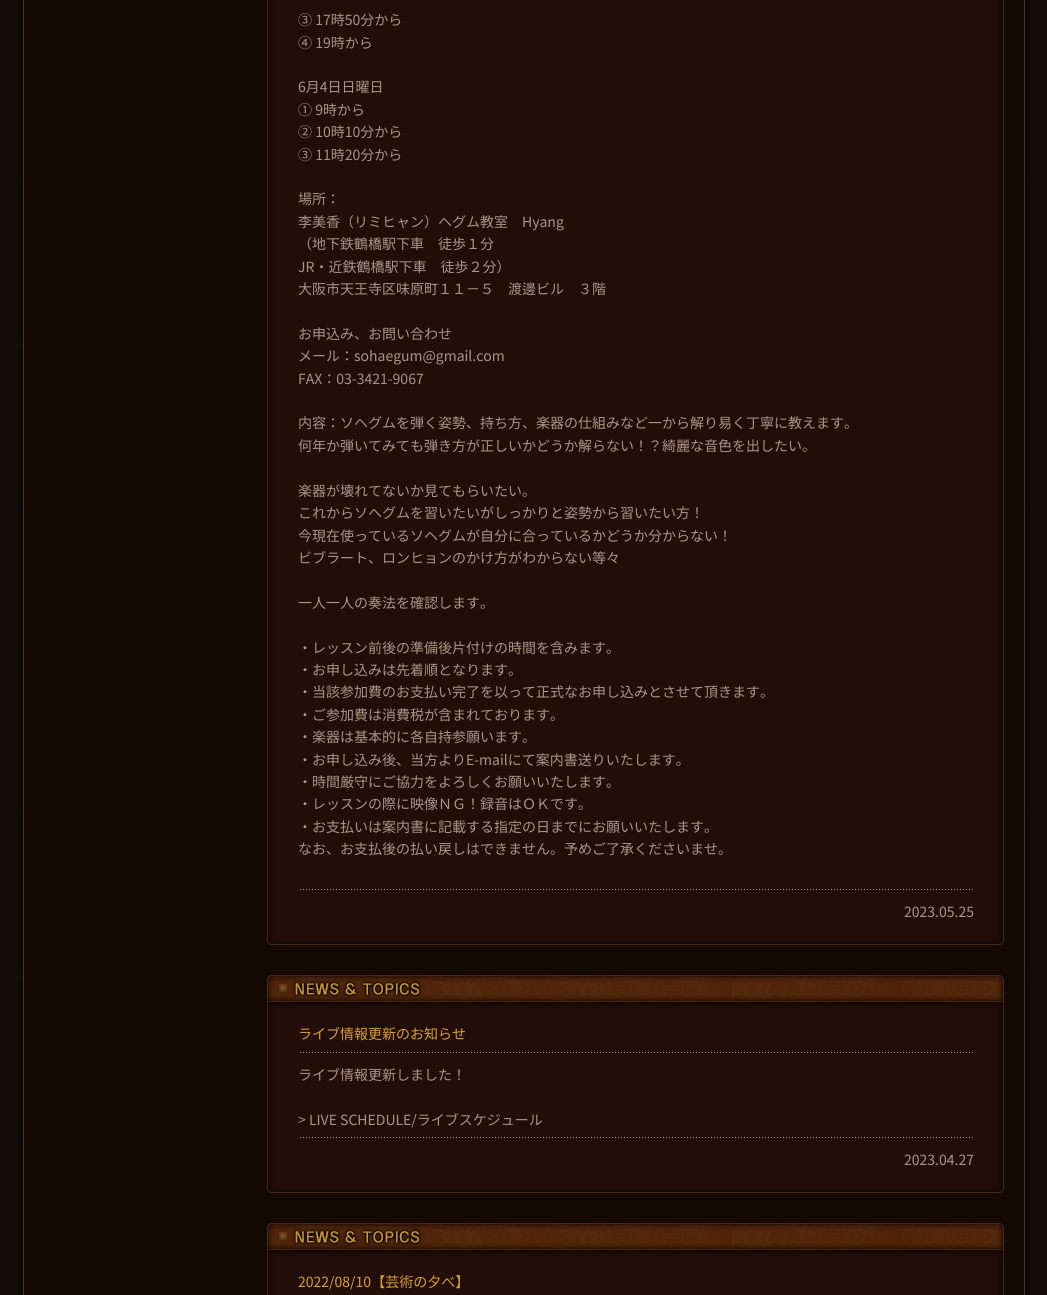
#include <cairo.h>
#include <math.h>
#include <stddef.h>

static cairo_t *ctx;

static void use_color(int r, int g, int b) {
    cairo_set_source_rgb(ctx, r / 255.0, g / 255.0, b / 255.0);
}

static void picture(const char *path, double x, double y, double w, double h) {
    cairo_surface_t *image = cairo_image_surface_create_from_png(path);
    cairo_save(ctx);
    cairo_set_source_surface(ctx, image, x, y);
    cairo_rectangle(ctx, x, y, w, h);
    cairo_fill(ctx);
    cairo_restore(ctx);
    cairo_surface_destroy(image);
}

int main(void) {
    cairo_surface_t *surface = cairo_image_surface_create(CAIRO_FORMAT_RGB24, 1047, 1295);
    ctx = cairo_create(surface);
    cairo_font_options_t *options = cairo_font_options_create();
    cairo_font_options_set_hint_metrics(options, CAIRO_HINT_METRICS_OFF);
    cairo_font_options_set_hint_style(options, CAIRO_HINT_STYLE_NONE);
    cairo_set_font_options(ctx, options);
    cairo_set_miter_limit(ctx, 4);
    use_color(22, 12, 9);
    cairo_paint(ctx);
    picture("img1.png", 18, 0, 1012, 1295);
    picture("img2.png", 267, 938, 737, 7);
    picture("img3.png", 267, 0, 737, 938);
    picture("img4.png", 300, 889, 673, 1);
    cairo_select_font_face(ctx, "Noto Sans JP", CAIRO_FONT_SLANT_NORMAL, CAIRO_FONT_WEIGHT_NORMAL);
    cairo_set_font_size(ctx, 14);
    use_color(169, 147, 134);
    cairo_move_to(ctx, 298, 25);
    cairo_show_text(ctx, "③ 17時50分から");
    cairo_move_to(ctx, 298, 48);
    cairo_show_text(ctx, "④ 19時から");
    cairo_move_to(ctx, 298, 92);
    cairo_show_text(ctx, "6月4日日曜日");
    cairo_move_to(ctx, 298, 115);
    cairo_show_text(ctx, "① 9時から");
    cairo_move_to(ctx, 298, 137);
    cairo_show_text(ctx, "② 10時10分から");
    cairo_move_to(ctx, 298, 160);
    cairo_show_text(ctx, "③ 11時20分から");
    cairo_move_to(ctx, 298, 204);
    cairo_show_text(ctx, "場所：");
    cairo_move_to(ctx, 298, 227);
    cairo_show_text(ctx, "李美香（リミヒャン）ヘグム教室　Hyang");
    cairo_move_to(ctx, 298, 249);
    cairo_show_text(ctx, "（地下鉄鶴橋駅下車　徒歩１分");
    cairo_move_to(ctx, 298, 272);
    cairo_show_text(ctx, "JR・近鉄鶴橋駅下車　徒歩２分）");
    cairo_move_to(ctx, 298, 294);
    cairo_show_text(ctx, "大阪市天王寺区味原町１１－５　渡邊ビル　３階");
    cairo_move_to(ctx, 298, 339);
    cairo_show_text(ctx, "お申込み、お問い合わせ");
    cairo_move_to(ctx, 298, 361);
    cairo_show_text(ctx, "メール：sohaegum@gmail.com");
    cairo_move_to(ctx, 298, 384);
    cairo_show_text(ctx, "FAX：03-3421-9067");
    cairo_move_to(ctx, 298, 428);
    cairo_show_text(ctx, "内容：ソヘグムを弾く姿勢、持ち方、楽器の仕組みなど一から解り易く丁寧に教えます。");
    cairo_move_to(ctx, 298, 451);
    cairo_show_text(ctx, "何年か弾いてみても弾き方が正しいかどうか解らない！？綺麗な音色を出したい。");
    cairo_move_to(ctx, 298, 496);
    cairo_show_text(ctx, "楽器が壊れてないか見てもらいたい。");
    cairo_move_to(ctx, 298, 518);
    cairo_show_text(ctx, "これからソヘグムを習いたいがしっかりと姿勢から習いたい方！");
    cairo_move_to(ctx, 298, 541);
    cairo_show_text(ctx, "今現在使っているソヘグムが自分に合っているかどうか分からない！");
    cairo_move_to(ctx, 298, 563);
    cairo_show_text(ctx, "ビブラート、ロンヒョンのかけ方がわからない等々");
    cairo_move_to(ctx, 298, 608);
    cairo_show_text(ctx, "一人一人の奏法を確認します。");
    cairo_move_to(ctx, 298, 653);
    cairo_show_text(ctx, "・レッスン前後の準備後片付けの時間を含みます。");
    cairo_move_to(ctx, 298, 675);
    cairo_show_text(ctx, "・お申し込みは先着順となります。");
    cairo_move_to(ctx, 298, 697);
    cairo_show_text(ctx, "・当該参加費のお支払い完了を以って正式なお申し込みとさせて頂きます。");
    cairo_move_to(ctx, 298, 720);
    cairo_show_text(ctx, "・ご参加費は消費税が含まれております。");
    cairo_move_to(ctx, 298, 742);
    cairo_show_text(ctx, "・楽器は基本的に各自持参願います。");
    cairo_move_to(ctx, 298, 765);
    cairo_show_text(ctx, "・お申し込み後、当方よりE-mailにて案内書送りいたします。");
    cairo_move_to(ctx, 298, 787);
    cairo_show_text(ctx, "・時間厳守にご協力をよろしくお願いいたします。");
    cairo_move_to(ctx, 298, 809);
    cairo_show_text(ctx, "・レッスンの際に映像ＮＧ！録音はＯＫです。");
    cairo_move_to(ctx, 298, 832);
    cairo_show_text(ctx, "・お支払いは案内書に記載する指定の日までにお願いいたします。");
    cairo_move_to(ctx, 298, 854);
    cairo_show_text(ctx, "なお、お支払後の払い戻しはできません。予めご了承くださいませ。");
    cairo_move_to(ctx, 904, 917);
    cairo_show_text(ctx, "2023.05.25");
    picture("img5.png", 267, 975, 737, 33);
    picture("img2.png", 267, 1186, 737, 7);
    picture("img6.png", 267, 1008, 737, 178);
    picture("img4.png", 300, 1052, 673, 1);
    use_color(215, 158, 53);
    cairo_move_to(ctx, 298, 1039);
    cairo_show_text(ctx, "ライブ情報更新のお知らせ");
    picture("img4.png", 300, 1137, 673, 1);
    use_color(169, 147, 134);
    cairo_move_to(ctx, 298, 1080);
    cairo_show_text(ctx, "ライブ情報更新しました！");
    cairo_move_to(ctx, 298, 1125);
    cairo_show_text(ctx, "> LIVE SCHEDULE/ライブスケジュール");
    cairo_move_to(ctx, 904, 1165);
    cairo_show_text(ctx, "2023.04.27");
    picture("img5.png", 267, 1223, 737, 33);
    picture("img7.png", 267, 1256, 737, 39);
    use_color(215, 158, 53);
    cairo_move_to(ctx, 298, 1287);
    cairo_show_text(ctx, "2022/08/10【芸術の夕べ】");
    cairo_surface_write_to_png(surface, "result.png");
    cairo_font_options_destroy(options);
    cairo_destroy(ctx);
    cairo_surface_destroy(surface);
    return 0;
}
